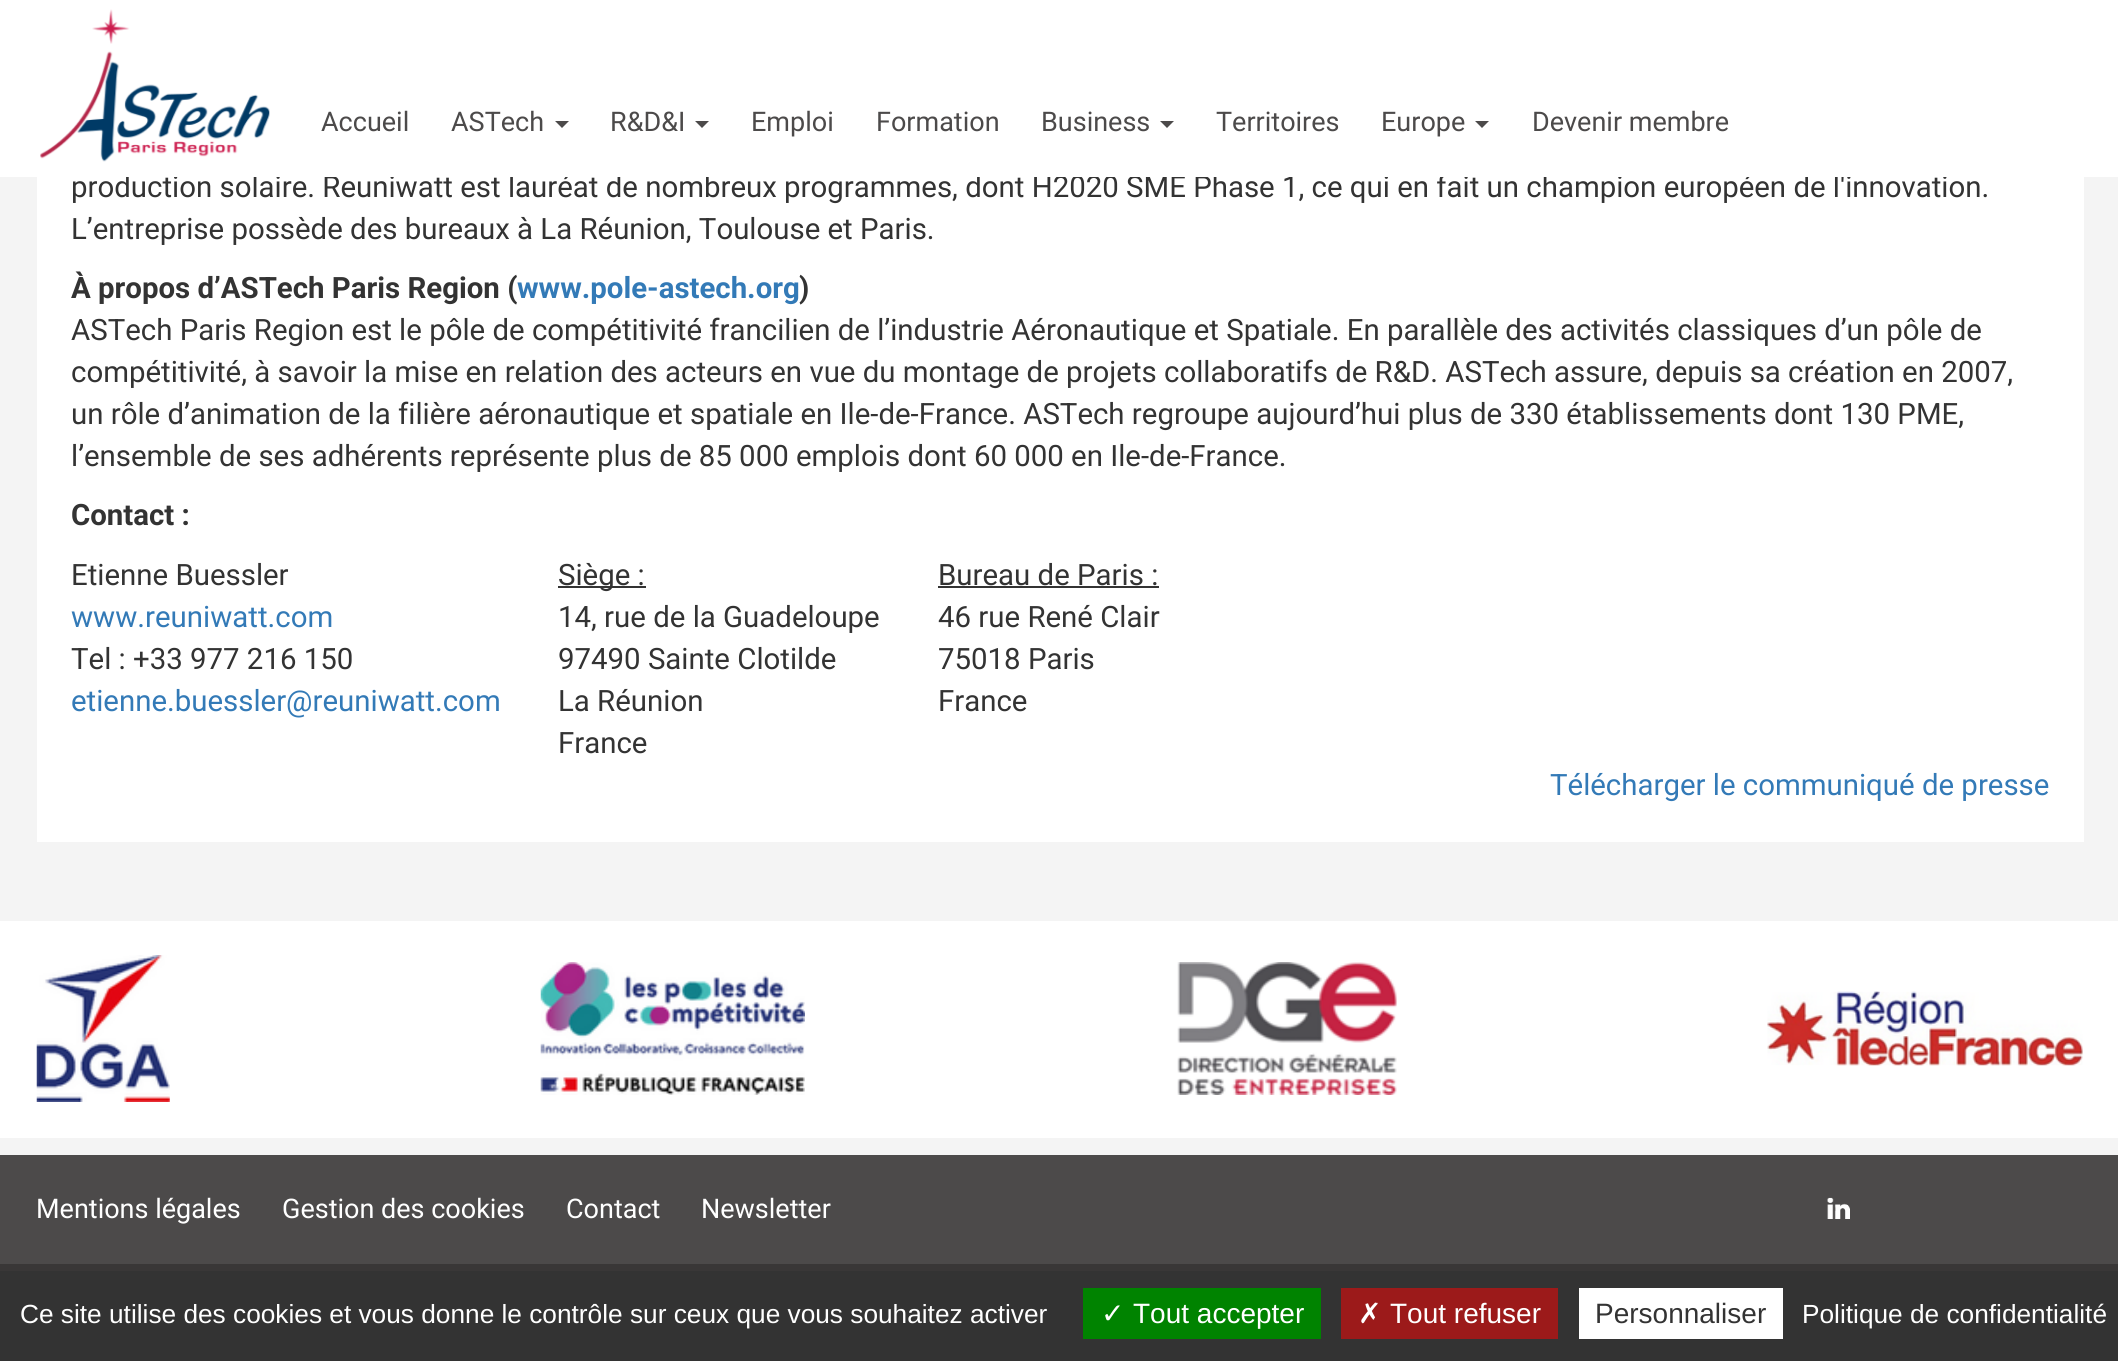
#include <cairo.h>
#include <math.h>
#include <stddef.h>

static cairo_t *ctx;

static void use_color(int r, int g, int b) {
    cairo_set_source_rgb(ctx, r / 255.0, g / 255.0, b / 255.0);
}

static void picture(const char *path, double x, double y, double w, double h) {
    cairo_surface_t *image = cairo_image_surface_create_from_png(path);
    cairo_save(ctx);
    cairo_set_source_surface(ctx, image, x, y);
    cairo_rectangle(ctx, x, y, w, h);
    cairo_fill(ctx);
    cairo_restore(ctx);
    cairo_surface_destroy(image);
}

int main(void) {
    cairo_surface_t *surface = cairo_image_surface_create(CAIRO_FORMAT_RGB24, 2118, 1361);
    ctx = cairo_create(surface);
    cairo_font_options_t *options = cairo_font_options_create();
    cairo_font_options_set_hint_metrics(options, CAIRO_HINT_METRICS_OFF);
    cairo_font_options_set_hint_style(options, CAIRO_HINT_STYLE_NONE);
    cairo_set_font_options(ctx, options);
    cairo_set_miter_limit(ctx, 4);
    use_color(244, 244, 244);
    cairo_paint(ctx);
    use_color(255, 255, 255);
    cairo_rectangle(ctx, 37, 177, 2047, 665);
    cairo_fill(ctx);
    cairo_select_font_face(ctx, "Roboto", CAIRO_FONT_SLANT_NORMAL, CAIRO_FONT_WEIGHT_NORMAL);
    cairo_set_font_size(ctx, 29.4);
    use_color(51, 51, 51);
    cairo_move_to(ctx, 71, 197);
    cairo_show_text(ctx, "production solaire. Reuniwatt est lauréat de nombreux programmes, dont H2020 SME Phase 1, ce qui en fait un champion européen de l'innovation.");
    use_color(255, 255, 255);
    cairo_rectangle(ctx, 0, 0, 2118, 177);
    cairo_fill(ctx);
    picture("img1.png", 40, 9, 230, 153);
    cairo_set_font_size(ctx, 27);
    use_color(76, 74, 74);
    cairo_move_to(ctx, 321, 131);
    cairo_show_text(ctx, "Accueil");
    cairo_move_to(ctx, 451, 131);
    cairo_show_text(ctx, "ASTech");
    cairo_new_path(ctx);
    cairo_move_to(ctx, 555, 121);
    cairo_line_to(ctx, 569, 121);
    cairo_line_to(ctx, 562, 128);
    cairo_close_path(ctx);
    cairo_fill(ctx);
    cairo_move_to(ctx, 610, 131);
    cairo_show_text(ctx, "R&D&I");
    cairo_new_path(ctx);
    cairo_move_to(ctx, 695, 121);
    cairo_line_to(ctx, 709, 121);
    cairo_line_to(ctx, 702, 128);
    cairo_close_path(ctx);
    cairo_fill(ctx);
    cairo_move_to(ctx, 751, 131);
    cairo_show_text(ctx, "Emploi");
    cairo_move_to(ctx, 876, 131);
    cairo_show_text(ctx, "Formation");
    cairo_move_to(ctx, 1041, 131);
    cairo_show_text(ctx, "Business");
    cairo_new_path(ctx);
    cairo_move_to(ctx, 1160, 121);
    cairo_line_to(ctx, 1174, 121);
    cairo_line_to(ctx, 1167, 128);
    cairo_close_path(ctx);
    cairo_fill(ctx);
    cairo_move_to(ctx, 1216, 131);
    cairo_show_text(ctx, "Territoires");
    cairo_move_to(ctx, 1381, 131);
    cairo_show_text(ctx, "Europe");
    cairo_new_path(ctx);
    cairo_move_to(ctx, 1475, 121);
    cairo_line_to(ctx, 1489, 121);
    cairo_line_to(ctx, 1482, 128);
    cairo_close_path(ctx);
    cairo_fill(ctx);
    cairo_move_to(ctx, 1532, 131);
    cairo_show_text(ctx, "Devenir membre");
    cairo_set_font_size(ctx, 29.4);
    use_color(51, 51, 51);
    cairo_move_to(ctx, 71, 239);
    cairo_show_text(ctx, "L’entreprise possède des bureaux à La Réunion, Toulouse et Paris.");
    cairo_select_font_face(ctx, "Roboto", CAIRO_FONT_SLANT_NORMAL, CAIRO_FONT_WEIGHT_BOLD);
    cairo_move_to(ctx, 71, 298);
    cairo_show_text(ctx, "À propos d’ASTech Paris Region (");
    use_color(51, 122, 183);
    cairo_move_to(ctx, 517, 298);
    cairo_show_text(ctx, "www.pole-astech.org");
    use_color(51, 51, 51);
    cairo_move_to(ctx, 799, 298);
    cairo_show_text(ctx, ")");
    cairo_select_font_face(ctx, "Roboto", CAIRO_FONT_SLANT_NORMAL, CAIRO_FONT_WEIGHT_NORMAL);
    cairo_move_to(ctx, 71, 340);
    cairo_show_text(ctx, "ASTech Paris Region est le pôle de compétitivité francilien de l’industrie Aéronautique et Spatiale. En parallèle des activités classiques d’un pôle de");
    cairo_move_to(ctx, 71, 382);
    cairo_show_text(ctx, "compétitivité, à savoir la mise en relation des acteurs en vue du montage de projets collaboratifs de R&D. ASTech assure, depuis sa création en 2007,");
    cairo_move_to(ctx, 71, 424);
    cairo_show_text(ctx, "un rôle d’animation de la filière aéronautique et spatiale en Ile-de-France. ASTech regroupe aujourd’hui plus de 330 établissements dont 130 PME,");
    cairo_move_to(ctx, 71, 466);
    cairo_show_text(ctx, "l’ensemble de ses adhérents représente plus de 85 000 emplois dont 60 000 en Ile-de-France.");
    cairo_select_font_face(ctx, "Roboto", CAIRO_FONT_SLANT_NORMAL, CAIRO_FONT_WEIGHT_BOLD);
    cairo_move_to(ctx, 71, 525);
    cairo_show_text(ctx, "Contact :");
    cairo_select_font_face(ctx, "Roboto", CAIRO_FONT_SLANT_NORMAL, CAIRO_FONT_WEIGHT_NORMAL);
    cairo_move_to(ctx, 71, 585);
    cairo_show_text(ctx, "Etienne Buessler");
    use_color(51, 122, 183);
    cairo_move_to(ctx, 71, 627);
    cairo_show_text(ctx, "www.reuniwatt.com");
    use_color(51, 51, 51);
    cairo_move_to(ctx, 71, 669);
    cairo_show_text(ctx, "Tel : +33 977 216 150");
    use_color(51, 122, 183);
    cairo_move_to(ctx, 71, 711);
    cairo_show_text(ctx, "etienne.buessler@reuniwatt.com");
    use_color(51, 51, 51);
    cairo_rectangle(ctx, 558, 586, 88, 2);
    cairo_fill(ctx);
    cairo_move_to(ctx, 558, 585);
    cairo_show_text(ctx, "Siège :");
    cairo_move_to(ctx, 558, 627);
    cairo_show_text(ctx, "14, rue de la Guadeloupe");
    cairo_move_to(ctx, 558, 669);
    cairo_show_text(ctx, "97490 Sainte Clotilde");
    cairo_move_to(ctx, 558, 711);
    cairo_show_text(ctx, "La Réunion");
    cairo_move_to(ctx, 558, 753);
    cairo_show_text(ctx, "France");
    cairo_move_to(ctx, 938, 585);
    cairo_show_text(ctx, "Bureau de Paris :");
    cairo_rectangle(ctx, 938, 586, 221, 2);
    cairo_fill(ctx);
    cairo_move_to(ctx, 938, 627);
    cairo_show_text(ctx, "46 rue René Clair");
    cairo_move_to(ctx, 938, 669);
    cairo_show_text(ctx, "75018 Paris");
    cairo_move_to(ctx, 938, 711);
    cairo_show_text(ctx, "France");
    use_color(51, 122, 183);
    cairo_move_to(ctx, 1550, 795);
    cairo_show_text(ctx, "Télécharger le communiqué de presse");
    use_color(255, 255, 255);
    cairo_rectangle(ctx, 0, 921, 2118, 217);
    cairo_fill(ctx);
    picture("img2.png", 36, 955, 134, 147);
    picture("img3.png", 540, 962, 265, 133);
    picture("img4.png", 1177, 962, 220, 133);
    picture("img5.png", 1767, 991, 316, 75);
    use_color(76, 74, 74);
    cairo_rectangle(ctx, 0, 1155, 2118, 109);
    cairo_fill(ctx);
    cairo_set_font_size(ctx, 27);
    use_color(255, 255, 255);
    cairo_move_to(ctx, 36, 1218);
    cairo_show_text(ctx, "Mentions légales");
    cairo_move_to(ctx, 282, 1218);
    cairo_show_text(ctx, "Gestion des cookies");
    cairo_move_to(ctx, 566, 1218);
    cairo_show_text(ctx, "Contact");
    cairo_move_to(ctx, 701, 1218);
    cairo_show_text(ctx, "Newsletter");
    picture("img6.png", 1827, 1197, 23, 22);
    use_color(57, 55, 55);
    cairo_rectangle(ctx, 0, 1264, 2118, 7);
    cairo_fill(ctx);
    use_color(51, 51, 51);
    cairo_rectangle(ctx, 0, 1271, 2118, 90);
    cairo_fill(ctx);
    cairo_select_font_face(ctx, "Liberation Sans", CAIRO_FONT_SLANT_NORMAL, CAIRO_FONT_WEIGHT_NORMAL);
    cairo_set_font_size(ctx, 26.25);
    use_color(255, 255, 255);
    cairo_move_to(ctx, 20, 1323);
    cairo_show_text(ctx, "Ce site utilise des cookies et vous donne le contrôle sur ceux que vous souhaitez activer");
    use_color(0, 131, 0);
    cairo_rectangle(ctx, 1083, 1288, 238, 51);
    cairo_fill(ctx);
    cairo_select_font_face(ctx, "DejaVu Sans", CAIRO_FONT_SLANT_NORMAL, CAIRO_FONT_WEIGHT_NORMAL);
    cairo_set_font_size(ctx, 28);
    use_color(255, 255, 255);
    cairo_move_to(ctx, 1101, 1323);
    cairo_show_text(ctx, "✓");
    cairo_select_font_face(ctx, "Liberation Sans", CAIRO_FONT_SLANT_NORMAL, CAIRO_FONT_WEIGHT_NORMAL);
    cairo_move_to(ctx, 1133, 1323);
    cairo_show_text(ctx, "Tout accepter");
    use_color(156, 26, 26);
    cairo_rectangle(ctx, 1341, 1288, 217, 51);
    cairo_fill(ctx);
    cairo_select_font_face(ctx, "DejaVu Sans", CAIRO_FONT_SLANT_NORMAL, CAIRO_FONT_WEIGHT_NORMAL);
    use_color(255, 255, 255);
    cairo_move_to(ctx, 1358, 1323);
    cairo_show_text(ctx, "✗");
    cairo_select_font_face(ctx, "Liberation Sans", CAIRO_FONT_SLANT_NORMAL, CAIRO_FONT_WEIGHT_NORMAL);
    cairo_move_to(ctx, 1390, 1323);
    cairo_show_text(ctx, "Tout refuser");
    cairo_rectangle(ctx, 1579, 1288, 204, 51);
    cairo_fill(ctx);
    use_color(51, 51, 51);
    cairo_move_to(ctx, 1595, 1323);
    cairo_show_text(ctx, "Personnaliser");
    cairo_set_font_size(ctx, 26.25);
    use_color(255, 255, 255);
    cairo_move_to(ctx, 1802, 1323);
    cairo_show_text(ctx, "Politique de confidentialité");
    cairo_surface_write_to_png(surface, "result.png");
    cairo_font_options_destroy(options);
    cairo_destroy(ctx);
    cairo_surface_destroy(surface);
    return 0;
}
